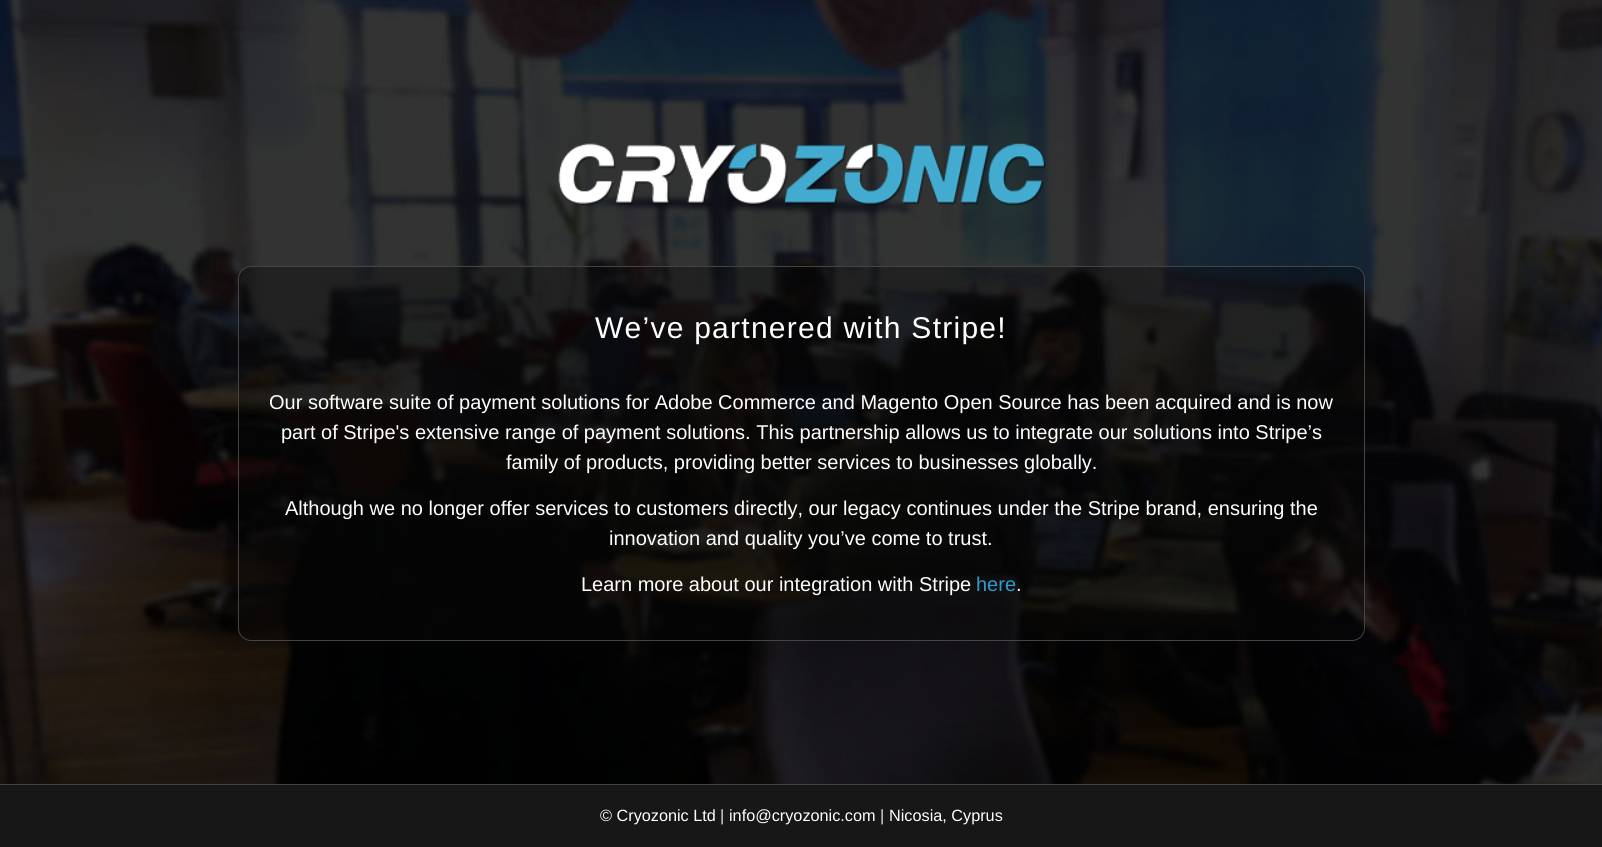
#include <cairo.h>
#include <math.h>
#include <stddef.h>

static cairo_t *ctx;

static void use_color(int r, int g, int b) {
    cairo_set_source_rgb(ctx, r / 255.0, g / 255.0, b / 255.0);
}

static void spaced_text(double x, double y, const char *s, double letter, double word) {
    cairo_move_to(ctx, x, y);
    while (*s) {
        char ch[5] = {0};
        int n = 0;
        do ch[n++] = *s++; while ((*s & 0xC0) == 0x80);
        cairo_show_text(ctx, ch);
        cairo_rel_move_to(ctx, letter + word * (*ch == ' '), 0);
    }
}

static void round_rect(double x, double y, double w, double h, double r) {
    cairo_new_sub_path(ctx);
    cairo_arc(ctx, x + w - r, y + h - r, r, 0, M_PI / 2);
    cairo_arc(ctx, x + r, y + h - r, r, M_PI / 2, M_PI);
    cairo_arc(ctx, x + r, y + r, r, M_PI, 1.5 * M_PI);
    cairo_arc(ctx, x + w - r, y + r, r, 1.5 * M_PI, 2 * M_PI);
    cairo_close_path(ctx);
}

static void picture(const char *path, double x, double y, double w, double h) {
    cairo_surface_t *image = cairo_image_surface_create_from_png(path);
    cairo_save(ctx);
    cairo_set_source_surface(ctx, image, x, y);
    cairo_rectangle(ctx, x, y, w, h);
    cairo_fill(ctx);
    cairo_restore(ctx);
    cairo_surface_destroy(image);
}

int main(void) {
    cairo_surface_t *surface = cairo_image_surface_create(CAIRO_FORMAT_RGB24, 1602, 847);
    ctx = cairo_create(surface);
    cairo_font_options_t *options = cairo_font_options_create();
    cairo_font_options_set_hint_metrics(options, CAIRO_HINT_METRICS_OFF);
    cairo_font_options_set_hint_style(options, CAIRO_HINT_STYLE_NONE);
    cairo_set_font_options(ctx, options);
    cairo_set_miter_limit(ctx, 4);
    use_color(255, 255, 255);
    cairo_paint(ctx);
    picture("img1.png", 0, 0, 1602, 784);
    use_color(68, 68, 68);
    cairo_rectangle(ctx, 0, 784, 1602, 1);
    cairo_fill(ctx);
    picture("img2.png", 558, 143, 488, 63);
    cairo_set_source_rgba(ctx, 0.039, 0.039, 0.039, 0.4);
    round_rect(238.5, 266.5, 1126, 374, 12.5);
    cairo_fill_preserve(ctx);
    use_color(68, 68, 68);
    cairo_set_line_width(ctx, 1);
    cairo_stroke(ctx);
    cairo_select_font_face(ctx, "Liberation Sans", CAIRO_FONT_SLANT_NORMAL, CAIRO_FONT_WEIGHT_NORMAL);
    cairo_set_font_size(ctx, 30);
    use_color(255, 255, 255);
    spaced_text(595, 338, "We’ve partnered with Stripe!", 1.25, 0);
    cairo_set_font_size(ctx, 20);
    cairo_move_to(ctx, 269, 409);
    cairo_show_text(ctx, "Our software suite of payment solutions for Adobe Commerce and Magento Open Source has been acquired and is now");
    cairo_move_to(ctx, 281, 439);
    cairo_show_text(ctx, "part of Stripe's extensive range of payment solutions. This partnership allows us to integrate our solutions into Stripe’s");
    cairo_move_to(ctx, 506, 469);
    cairo_show_text(ctx, "family of products, providing better services to businesses globally.");
    cairo_move_to(ctx, 285, 515);
    cairo_show_text(ctx, "Although we no longer offer services to customers directly, our legacy continues under the Stripe brand, ensuring the");
    cairo_move_to(ctx, 609, 545);
    cairo_show_text(ctx, "innovation and quality you’ve come to trust.");
    cairo_move_to(ctx, 581, 591);
    cairo_show_text(ctx, "Learn more about our integration with Stripe");
    use_color(51, 153, 204);
    cairo_move_to(ctx, 976, 591);
    cairo_show_text(ctx, "here");
    use_color(255, 255, 255);
    cairo_move_to(ctx, 1016, 591);
    cairo_show_text(ctx, ".");
    use_color(23, 23, 23);
    cairo_rectangle(ctx, 0, 785, 1602, 62);
    cairo_fill(ctx);
    cairo_set_font_size(ctx, 16.25);
    use_color(255, 255, 255);
    cairo_move_to(ctx, 600, 821);
    cairo_show_text(ctx, "© Cryozonic Ltd");
    use_color(230, 225, 220);
    cairo_move_to(ctx, 720, 821);
    cairo_show_text(ctx, "|");
    use_color(255, 255, 255);
    cairo_move_to(ctx, 729, 821);
    cairo_show_text(ctx, "info@cryozonic.com");
    use_color(230, 225, 220);
    cairo_move_to(ctx, 880, 821);
    cairo_show_text(ctx, "|");
    use_color(255, 255, 255);
    cairo_move_to(ctx, 889, 821);
    cairo_show_text(ctx, "Nicosia, Cyprus");
    cairo_surface_write_to_png(surface, "result.png");
    cairo_font_options_destroy(options);
    cairo_destroy(ctx);
    cairo_surface_destroy(surface);
    return 0;
}
